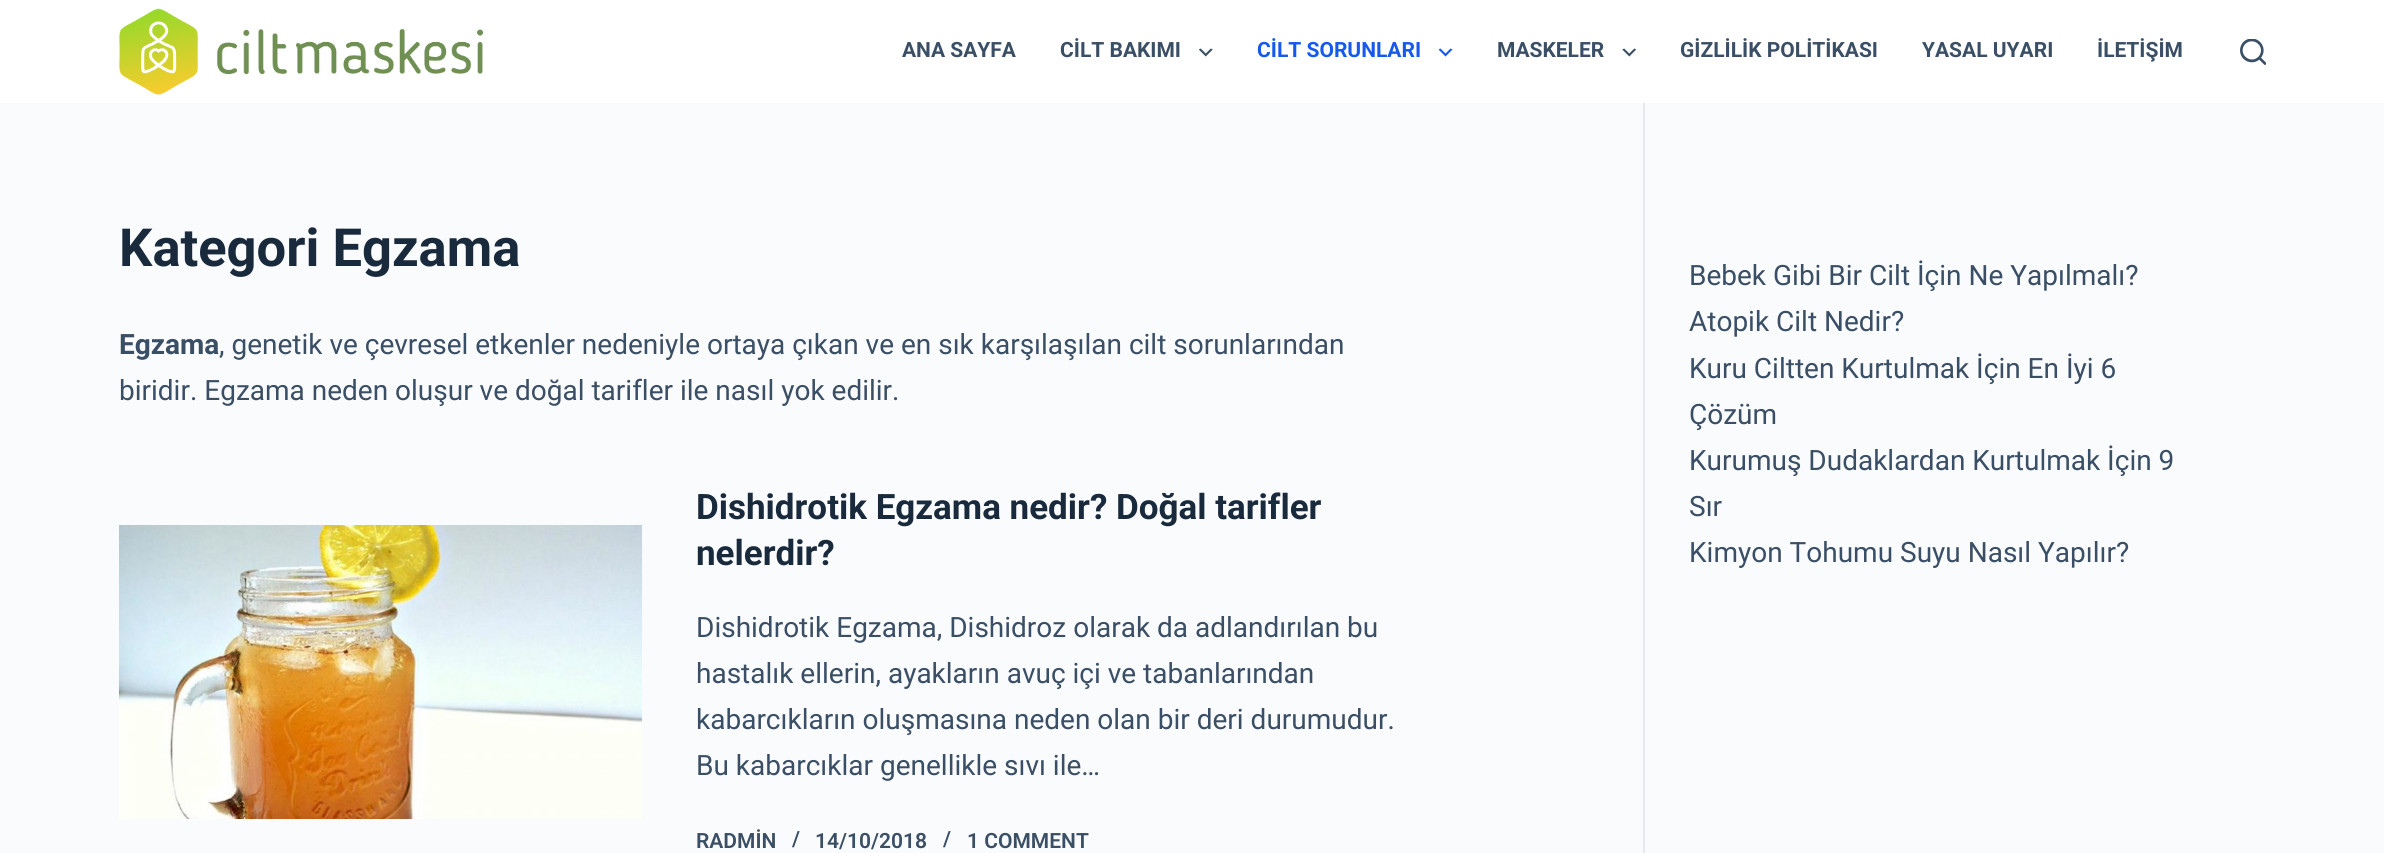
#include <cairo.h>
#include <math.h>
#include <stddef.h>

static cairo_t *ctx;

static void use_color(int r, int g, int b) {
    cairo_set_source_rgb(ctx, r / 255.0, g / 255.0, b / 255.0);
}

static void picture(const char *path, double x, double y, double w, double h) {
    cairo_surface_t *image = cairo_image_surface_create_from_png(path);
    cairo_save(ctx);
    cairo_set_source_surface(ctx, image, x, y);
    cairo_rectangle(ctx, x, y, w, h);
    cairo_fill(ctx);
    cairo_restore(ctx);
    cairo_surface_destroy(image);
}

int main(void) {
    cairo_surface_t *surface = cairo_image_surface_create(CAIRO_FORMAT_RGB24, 2384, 853);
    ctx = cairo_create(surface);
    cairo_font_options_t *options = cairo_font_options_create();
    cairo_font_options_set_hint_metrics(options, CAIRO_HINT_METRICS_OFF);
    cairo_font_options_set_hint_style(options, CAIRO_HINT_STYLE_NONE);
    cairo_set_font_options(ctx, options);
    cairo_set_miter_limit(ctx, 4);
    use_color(250, 251, 252);
    cairo_paint(ctx);
    use_color(255, 255, 255);
    cairo_rectangle(ctx, 0, 0, 2384, 103);
    cairo_fill(ctx);
    picture("img1.png", 119, 8, 364, 87);
    cairo_select_font_face(ctx, "Roboto", CAIRO_FONT_SLANT_NORMAL, CAIRO_FONT_WEIGHT_BOLD);
    cairo_set_font_size(ctx, 21);
    use_color(58, 79, 102);
    cairo_move_to(ctx, 902, 57);
    cairo_show_text(ctx, "ANA SAYFA");
    cairo_move_to(ctx, 1060, 57);
    cairo_show_text(ctx, "CİLT BAKIMI");
    picture("img2.png", 1199, 48, 14, 9);
    use_color(21, 89, 237);
    cairo_move_to(ctx, 1257, 57);
    cairo_show_text(ctx, "CİLT SORUNLARI");
    picture("img3.png", 1439, 48, 14, 9);
    use_color(58, 79, 102);
    cairo_move_to(ctx, 1497, 57);
    cairo_show_text(ctx, "MASKELER");
    picture("img4.png", 1622, 48, 14, 9);
    cairo_move_to(ctx, 1680, 57);
    cairo_show_text(ctx, "GİZLİLİK POLİTİKASI");
    cairo_move_to(ctx, 1922, 57);
    cairo_show_text(ctx, "YASAL UYARI");
    cairo_move_to(ctx, 2097, 57);
    cairo_show_text(ctx, "İLETİŞİM");
    picture("img5.png", 2240, 39, 26, 26);
    cairo_set_font_size(ctx, 52.5);
    use_color(25, 42, 61);
    cairo_move_to(ctx, 119, 266);
    cairo_show_text(ctx, "Kategori Egzama");
    cairo_set_font_size(ctx, 28);
    use_color(58, 79, 102);
    cairo_move_to(ctx, 119, 354);
    cairo_show_text(ctx, "Egzama");
    cairo_select_font_face(ctx, "Roboto", CAIRO_FONT_SLANT_NORMAL, CAIRO_FONT_WEIGHT_NORMAL);
    cairo_move_to(ctx, 219, 354);
    cairo_show_text(ctx, ", genetik ve çevresel etkenler nedeniyle ortaya çıkan ve en sık karşılaşılan cilt sorunlarından");
    cairo_move_to(ctx, 119, 400);
    cairo_show_text(ctx, "biridir. Egzama neden oluşur ve doğal tarifler ile nasıl yok edilir.");
    picture("img6.png", 119, 525, 524, 294);
    cairo_select_font_face(ctx, "Roboto", CAIRO_FONT_SLANT_NORMAL, CAIRO_FONT_WEIGHT_BOLD);
    cairo_set_font_size(ctx, 35);
    use_color(25, 42, 61);
    cairo_move_to(ctx, 696, 519);
    cairo_show_text(ctx, "Dishidrotik Egzama nedir? Doğal tarifler");
    cairo_move_to(ctx, 696, 565);
    cairo_show_text(ctx, "nelerdir?");
    cairo_select_font_face(ctx, "Roboto", CAIRO_FONT_SLANT_NORMAL, CAIRO_FONT_WEIGHT_NORMAL);
    cairo_set_font_size(ctx, 28);
    use_color(58, 79, 102);
    cairo_move_to(ctx, 696, 637);
    cairo_show_text(ctx, "Dishidrotik Egzama, Dishidroz olarak da adlandırılan bu");
    cairo_move_to(ctx, 696, 683);
    cairo_show_text(ctx, "hastalık ellerin, ayakların avuç içi ve tabanlarından");
    cairo_move_to(ctx, 696, 729);
    cairo_show_text(ctx, "kabarcıkların oluşmasına neden olan bir deri durumudur.");
    cairo_move_to(ctx, 696, 775);
    cairo_show_text(ctx, "Bu kabarcıklar genellikle sıvı ile…");
    cairo_select_font_face(ctx, "Roboto SemiBold", CAIRO_FONT_SLANT_NORMAL, CAIRO_FONT_WEIGHT_NORMAL);
    cairo_set_font_size(ctx, 21);
    cairo_move_to(ctx, 696, 848);
    cairo_show_text(ctx, "RADMİN");
    cairo_move_to(ctx, 792, 846);
    cairo_show_text(ctx, "/");
    cairo_move_to(ctx, 815, 848);
    cairo_show_text(ctx, "14/10/2018");
    cairo_move_to(ctx, 943, 846);
    cairo_show_text(ctx, "/");
    cairo_move_to(ctx, 967, 848);
    cairo_show_text(ctx, "1 COMMENT");
    use_color(229, 233, 238);
    cairo_rectangle(ctx, 1643, 103, 2, 750);
    cairo_fill(ctx);
    cairo_select_font_face(ctx, "Roboto", CAIRO_FONT_SLANT_NORMAL, CAIRO_FONT_WEIGHT_NORMAL);
    cairo_set_font_size(ctx, 28);
    use_color(58, 79, 102);
    cairo_move_to(ctx, 1689, 285);
    cairo_show_text(ctx, "Bebek Gibi Bir Cilt İçin Ne Yapılmalı?");
    cairo_move_to(ctx, 1689, 331);
    cairo_show_text(ctx, "Atopik Cilt Nedir?");
    cairo_move_to(ctx, 1689, 378);
    cairo_show_text(ctx, "Kuru Ciltten Kurtulmak İçin En İyi 6");
    cairo_move_to(ctx, 1689, 424);
    cairo_show_text(ctx, "Çözüm");
    cairo_move_to(ctx, 1689, 470);
    cairo_show_text(ctx, "Kurumuş Dudaklardan Kurtulmak İçin 9");
    cairo_move_to(ctx, 1689, 516);
    cairo_show_text(ctx, "Sır");
    cairo_move_to(ctx, 1689, 562);
    cairo_show_text(ctx, "Kimyon Tohumu Suyu Nasıl Yapılır?");
    cairo_surface_write_to_png(surface, "result.png");
    cairo_font_options_destroy(options);
    cairo_destroy(ctx);
    cairo_surface_destroy(surface);
    return 0;
}
